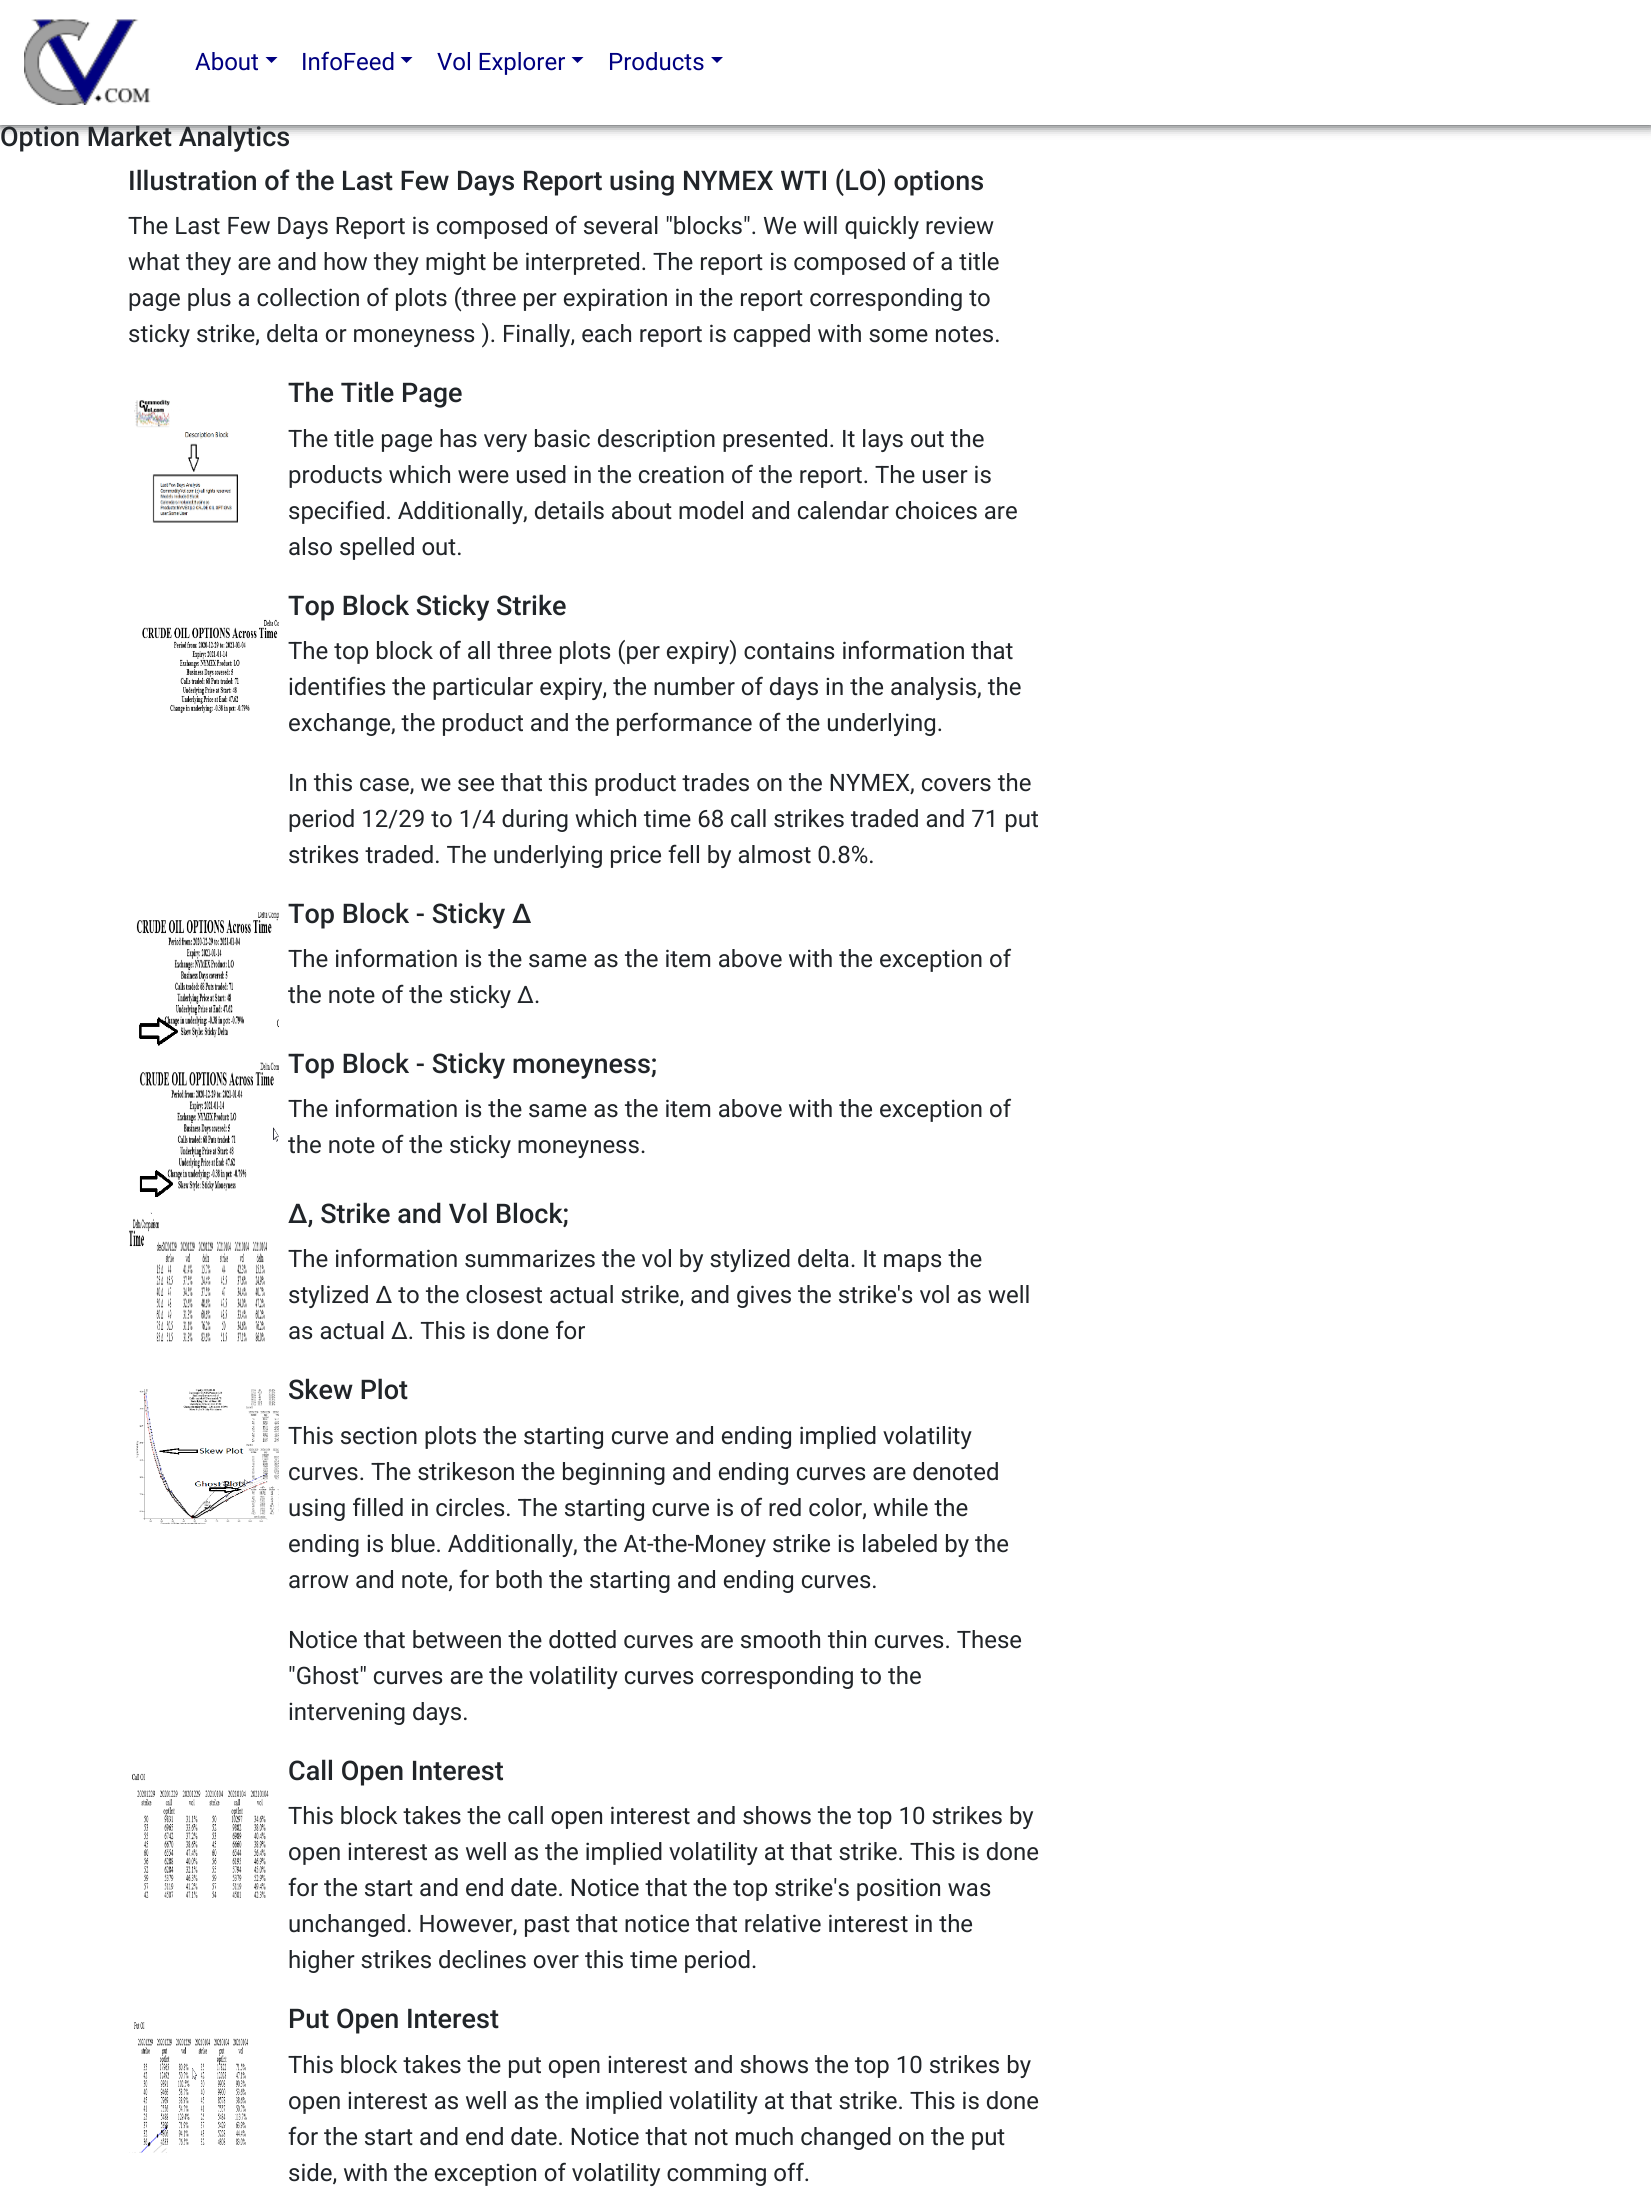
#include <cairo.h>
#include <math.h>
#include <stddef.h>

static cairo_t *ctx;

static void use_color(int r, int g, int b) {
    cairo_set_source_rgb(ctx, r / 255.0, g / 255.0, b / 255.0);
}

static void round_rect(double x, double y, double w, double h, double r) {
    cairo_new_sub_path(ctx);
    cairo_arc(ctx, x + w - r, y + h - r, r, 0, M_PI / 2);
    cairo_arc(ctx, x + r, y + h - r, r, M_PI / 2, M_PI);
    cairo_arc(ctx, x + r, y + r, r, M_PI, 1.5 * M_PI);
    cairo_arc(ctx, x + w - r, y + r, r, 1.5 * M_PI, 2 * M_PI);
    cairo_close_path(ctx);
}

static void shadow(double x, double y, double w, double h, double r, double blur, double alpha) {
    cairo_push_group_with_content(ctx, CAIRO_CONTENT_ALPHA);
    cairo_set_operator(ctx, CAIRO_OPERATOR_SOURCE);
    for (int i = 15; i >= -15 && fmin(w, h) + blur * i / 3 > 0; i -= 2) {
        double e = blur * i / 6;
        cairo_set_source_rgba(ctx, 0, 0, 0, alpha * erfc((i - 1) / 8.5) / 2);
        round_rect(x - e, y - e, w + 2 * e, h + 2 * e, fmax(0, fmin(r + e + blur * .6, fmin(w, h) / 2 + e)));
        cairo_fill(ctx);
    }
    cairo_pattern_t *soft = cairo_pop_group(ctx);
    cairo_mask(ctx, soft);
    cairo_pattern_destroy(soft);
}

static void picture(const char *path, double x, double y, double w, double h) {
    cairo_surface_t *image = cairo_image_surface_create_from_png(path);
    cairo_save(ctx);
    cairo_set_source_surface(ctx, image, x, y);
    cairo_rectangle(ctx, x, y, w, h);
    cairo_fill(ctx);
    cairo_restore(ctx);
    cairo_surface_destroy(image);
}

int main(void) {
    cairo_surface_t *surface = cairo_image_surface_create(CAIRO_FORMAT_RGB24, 1651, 2187);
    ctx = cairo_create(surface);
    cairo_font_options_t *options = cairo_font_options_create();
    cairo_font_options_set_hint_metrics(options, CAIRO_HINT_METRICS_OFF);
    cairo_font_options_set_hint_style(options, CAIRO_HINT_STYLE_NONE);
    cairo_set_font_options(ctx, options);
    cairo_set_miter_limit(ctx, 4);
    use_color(255, 255, 255);
    cairo_paint(ctx);
    use_color(33, 37, 41);
    shadow(0, 0, 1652, 125, 0, 6, 1);
    use_color(255, 255, 255);
    cairo_rectangle(ctx, 0, 0, 1651, 125);
    cairo_fill(ctx);
    picture("img1.png", 24, 19, 127, 86);
    cairo_select_font_face(ctx, "Roboto", CAIRO_FONT_SLANT_NORMAL, CAIRO_FONT_WEIGHT_NORMAL);
    cairo_set_font_size(ctx, 24);
    use_color(0, 0, 128);
    cairo_move_to(ctx, 195, 70);
    cairo_show_text(ctx, "About");
    cairo_new_path(ctx);
    cairo_move_to(ctx, 265.5, 57);
    cairo_line_to(ctx, 277.5, 57);
    cairo_line_to(ctx, 271.5, 63);
    cairo_close_path(ctx);
    cairo_fill(ctx);
    cairo_move_to(ctx, 301, 70);
    cairo_show_text(ctx, "InfoFeed");
    cairo_new_path(ctx);
    cairo_move_to(ctx, 400.5, 57);
    cairo_line_to(ctx, 412.5, 57);
    cairo_line_to(ctx, 406.5, 63);
    cairo_close_path(ctx);
    cairo_fill(ctx);
    cairo_move_to(ctx, 437, 70);
    cairo_show_text(ctx, "Vol Explorer");
    cairo_new_path(ctx);
    cairo_move_to(ctx, 571.5, 57);
    cairo_line_to(ctx, 583.5, 57);
    cairo_line_to(ctx, 577.5, 63);
    cairo_close_path(ctx);
    cairo_fill(ctx);
    cairo_move_to(ctx, 608, 70);
    cairo_show_text(ctx, "Products");
    cairo_new_path(ctx);
    cairo_move_to(ctx, 711, 57);
    cairo_line_to(ctx, 723, 57);
    cairo_line_to(ctx, 717, 63);
    cairo_close_path(ctx);
    cairo_fill(ctx);
    cairo_select_font_face(ctx, "Roboto Medium", CAIRO_FONT_SLANT_NORMAL, CAIRO_FONT_WEIGHT_NORMAL);
    cairo_set_font_size(ctx, 27);
    use_color(33, 37, 41);
    cairo_move_to(ctx, 0, 146);
    cairo_show_text(ctx, "Option Market Analytics");
    cairo_move_to(ctx, 128, 190);
    cairo_show_text(ctx, "Illustration of the Last Few Days Report using NYMEX WTI (LO) options");
    cairo_select_font_face(ctx, "Roboto", CAIRO_FONT_SLANT_NORMAL, CAIRO_FONT_WEIGHT_NORMAL);
    cairo_set_font_size(ctx, 24);
    cairo_move_to(ctx, 128, 234);
    cairo_show_text(ctx, "The Last Few Days Report is composed of several \"blocks\". We will quickly review");
    cairo_move_to(ctx, 128, 270);
    cairo_show_text(ctx, "what they are and how they might be interpreted. The report is composed of a title");
    cairo_move_to(ctx, 128, 306);
    cairo_show_text(ctx, "page plus a collection of plots (three per expiration in the report corresponding to");
    cairo_move_to(ctx, 128, 342);
    cairo_show_text(ctx, "sticky strike, delta or moneyness ). Finally, each report is capped with some notes.");
    picture("img2.png", 134, 399, 104, 124);
    cairo_select_font_face(ctx, "Roboto Medium", CAIRO_FONT_SLANT_NORMAL, CAIRO_FONT_WEIGHT_NORMAL);
    cairo_set_font_size(ctx, 27);
    cairo_move_to(ctx, 288, 402);
    cairo_show_text(ctx, "The Title Page");
    cairo_select_font_face(ctx, "Roboto", CAIRO_FONT_SLANT_NORMAL, CAIRO_FONT_WEIGHT_NORMAL);
    cairo_set_font_size(ctx, 24);
    cairo_move_to(ctx, 288, 447);
    cairo_show_text(ctx, "The title page has very basic description presented. It lays out the");
    cairo_move_to(ctx, 288, 483);
    cairo_show_text(ctx, "products which were used in the creation of the report. The user is");
    cairo_move_to(ctx, 288, 519);
    cairo_show_text(ctx, "specified. Additionally, details about model and calendar choices are");
    cairo_move_to(ctx, 288, 555);
    cairo_show_text(ctx, "also spelled out.");
    picture("img3.png", 142, 619, 137, 94);
    cairo_select_font_face(ctx, "Roboto Medium", CAIRO_FONT_SLANT_NORMAL, CAIRO_FONT_WEIGHT_NORMAL);
    cairo_set_font_size(ctx, 27);
    cairo_move_to(ctx, 288, 615);
    cairo_show_text(ctx, "Top Block Sticky Strike");
    cairo_select_font_face(ctx, "Roboto", CAIRO_FONT_SLANT_NORMAL, CAIRO_FONT_WEIGHT_NORMAL);
    cairo_set_font_size(ctx, 24);
    cairo_move_to(ctx, 288, 659);
    cairo_show_text(ctx, "The top block of all three plots (per expiry) contains information that");
    cairo_move_to(ctx, 288, 695);
    cairo_show_text(ctx, "identifies the particular expiry, the number of days in the analysis, the");
    cairo_move_to(ctx, 288, 731);
    cairo_show_text(ctx, "exchange, the product and the performance of the underlying.");
    cairo_move_to(ctx, 288, 791);
    cairo_show_text(ctx, "In this case, we see that this product trades on the NYMEX, covers the");
    cairo_move_to(ctx, 288, 827);
    cairo_show_text(ctx, "period 12/29 to 1/4 during which time 68 call strikes traded and 71 put");
    cairo_move_to(ctx, 288, 863);
    cairo_show_text(ctx, "strikes traded. The underlying price fell by almost 0.8%.");
    picture("img4.png", 136, 912, 143, 134);
    cairo_select_font_face(ctx, "Roboto Medium", CAIRO_FONT_SLANT_NORMAL, CAIRO_FONT_WEIGHT_NORMAL);
    cairo_set_font_size(ctx, 27);
    cairo_move_to(ctx, 288, 923);
    cairo_show_text(ctx, "Top Block - Sticky Δ");
    cairo_select_font_face(ctx, "Roboto", CAIRO_FONT_SLANT_NORMAL, CAIRO_FONT_WEIGHT_NORMAL);
    cairo_set_font_size(ctx, 24);
    cairo_move_to(ctx, 288, 967);
    cairo_show_text(ctx, "The information is the same as the item above with the exception of");
    cairo_move_to(ctx, 288, 1003);
    cairo_show_text(ctx, "the note of the sticky Δ.");
    picture("img5.png", 139, 1062, 140, 135);
    cairo_select_font_face(ctx, "Roboto Medium", CAIRO_FONT_SLANT_NORMAL, CAIRO_FONT_WEIGHT_NORMAL);
    cairo_set_font_size(ctx, 27);
    cairo_move_to(ctx, 288, 1073);
    cairo_show_text(ctx, "Top Block - Sticky moneyness;");
    cairo_select_font_face(ctx, "Roboto", CAIRO_FONT_SLANT_NORMAL, CAIRO_FONT_WEIGHT_NORMAL);
    cairo_set_font_size(ctx, 24);
    cairo_move_to(ctx, 288, 1117);
    cairo_show_text(ctx, "The information is the same as the item above with the exception of");
    cairo_move_to(ctx, 288, 1153);
    cairo_show_text(ctx, "the note of the sticky moneyness.");
    picture("img6.png", 129, 1212, 138, 130);
    cairo_select_font_face(ctx, "Roboto Medium", CAIRO_FONT_SLANT_NORMAL, CAIRO_FONT_WEIGHT_NORMAL);
    cairo_set_font_size(ctx, 27);
    cairo_move_to(ctx, 288, 1223);
    cairo_show_text(ctx, "Δ, Strike and Vol Block;");
    cairo_select_font_face(ctx, "Roboto", CAIRO_FONT_SLANT_NORMAL, CAIRO_FONT_WEIGHT_NORMAL);
    cairo_set_font_size(ctx, 24);
    cairo_move_to(ctx, 288, 1267);
    cairo_show_text(ctx, "The information summarizes the vol by stylized delta. It maps the");
    cairo_move_to(ctx, 288, 1303);
    cairo_show_text(ctx, "stylized Δ to the closest actual strike, and gives the strike's vol as well");
    cairo_move_to(ctx, 288, 1339);
    cairo_show_text(ctx, "as actual Δ. This is done for");
    picture("img7.png", 136, 1389, 143, 135);
    cairo_select_font_face(ctx, "Roboto Medium", CAIRO_FONT_SLANT_NORMAL, CAIRO_FONT_WEIGHT_NORMAL);
    cairo_set_font_size(ctx, 27);
    cairo_move_to(ctx, 288, 1399);
    cairo_show_text(ctx, "Skew Plot");
    cairo_select_font_face(ctx, "Roboto", CAIRO_FONT_SLANT_NORMAL, CAIRO_FONT_WEIGHT_NORMAL);
    cairo_set_font_size(ctx, 24);
    cairo_move_to(ctx, 288, 1444);
    cairo_show_text(ctx, "This section plots the starting curve and ending implied volatility");
    cairo_move_to(ctx, 288, 1480);
    cairo_show_text(ctx, "curves. The strikeson the beginning and ending curves are denoted");
    cairo_move_to(ctx, 288, 1516);
    cairo_show_text(ctx, "using filled in circles. The starting curve is of red color, while the");
    cairo_move_to(ctx, 288, 1552);
    cairo_show_text(ctx, "ending is blue. Additionally, the At-the-Money strike is labeled by the");
    cairo_move_to(ctx, 288, 1588);
    cairo_show_text(ctx, "arrow and note, for both the starting and ending curves.");
    cairo_move_to(ctx, 288, 1648);
    cairo_show_text(ctx, "Notice that between the dotted curves are smooth thin curves. These");
    cairo_move_to(ctx, 288, 1684);
    cairo_show_text(ctx, "\"Ghost\" curves are the volatility curves corresponding to the");
    cairo_move_to(ctx, 288, 1720);
    cairo_show_text(ctx, "intervening days.");
    picture("img8.png", 132, 1773, 137, 125);
    cairo_select_font_face(ctx, "Roboto Medium", CAIRO_FONT_SLANT_NORMAL, CAIRO_FONT_WEIGHT_NORMAL);
    cairo_set_font_size(ctx, 27);
    cairo_move_to(ctx, 288, 1780);
    cairo_show_text(ctx, "Call Open Interest");
    cairo_select_font_face(ctx, "Roboto", CAIRO_FONT_SLANT_NORMAL, CAIRO_FONT_WEIGHT_NORMAL);
    cairo_set_font_size(ctx, 24);
    cairo_move_to(ctx, 288, 1824);
    cairo_show_text(ctx, "This block takes the call open interest and shows the top 10 strikes by");
    cairo_move_to(ctx, 288, 1860);
    cairo_show_text(ctx, "open interest as well as the implied volatility at that strike. This is done");
    cairo_move_to(ctx, 288, 1896);
    cairo_show_text(ctx, "for the start and end date. Notice that the top strike's position was");
    cairo_move_to(ctx, 288, 1932);
    cairo_show_text(ctx, "unchanged. However, past that notice that relative interest in the");
    cairo_move_to(ctx, 288, 1968);
    cairo_show_text(ctx, "higher strikes declines over this time period.");
    picture("img9.png", 129, 2022, 119, 131);
    cairo_select_font_face(ctx, "Roboto Medium", CAIRO_FONT_SLANT_NORMAL, CAIRO_FONT_WEIGHT_NORMAL);
    cairo_set_font_size(ctx, 27);
    cairo_move_to(ctx, 288, 2028);
    cairo_show_text(ctx, "Put Open Interest");
    cairo_select_font_face(ctx, "Roboto", CAIRO_FONT_SLANT_NORMAL, CAIRO_FONT_WEIGHT_NORMAL);
    cairo_set_font_size(ctx, 24);
    cairo_move_to(ctx, 288, 2073);
    cairo_show_text(ctx, "This block takes the put open interest and shows the top 10 strikes by");
    cairo_move_to(ctx, 288, 2109);
    cairo_show_text(ctx, "open interest as well as the implied volatility at that strike. This is done");
    cairo_move_to(ctx, 288, 2145);
    cairo_show_text(ctx, "for the start and end date. Notice that not much changed on the put");
    cairo_move_to(ctx, 288, 2181);
    cairo_show_text(ctx, "side, with the exception of volatility comming off.");
    cairo_surface_write_to_png(surface, "result.png");
    cairo_font_options_destroy(options);
    cairo_destroy(ctx);
    cairo_surface_destroy(surface);
    return 0;
}
